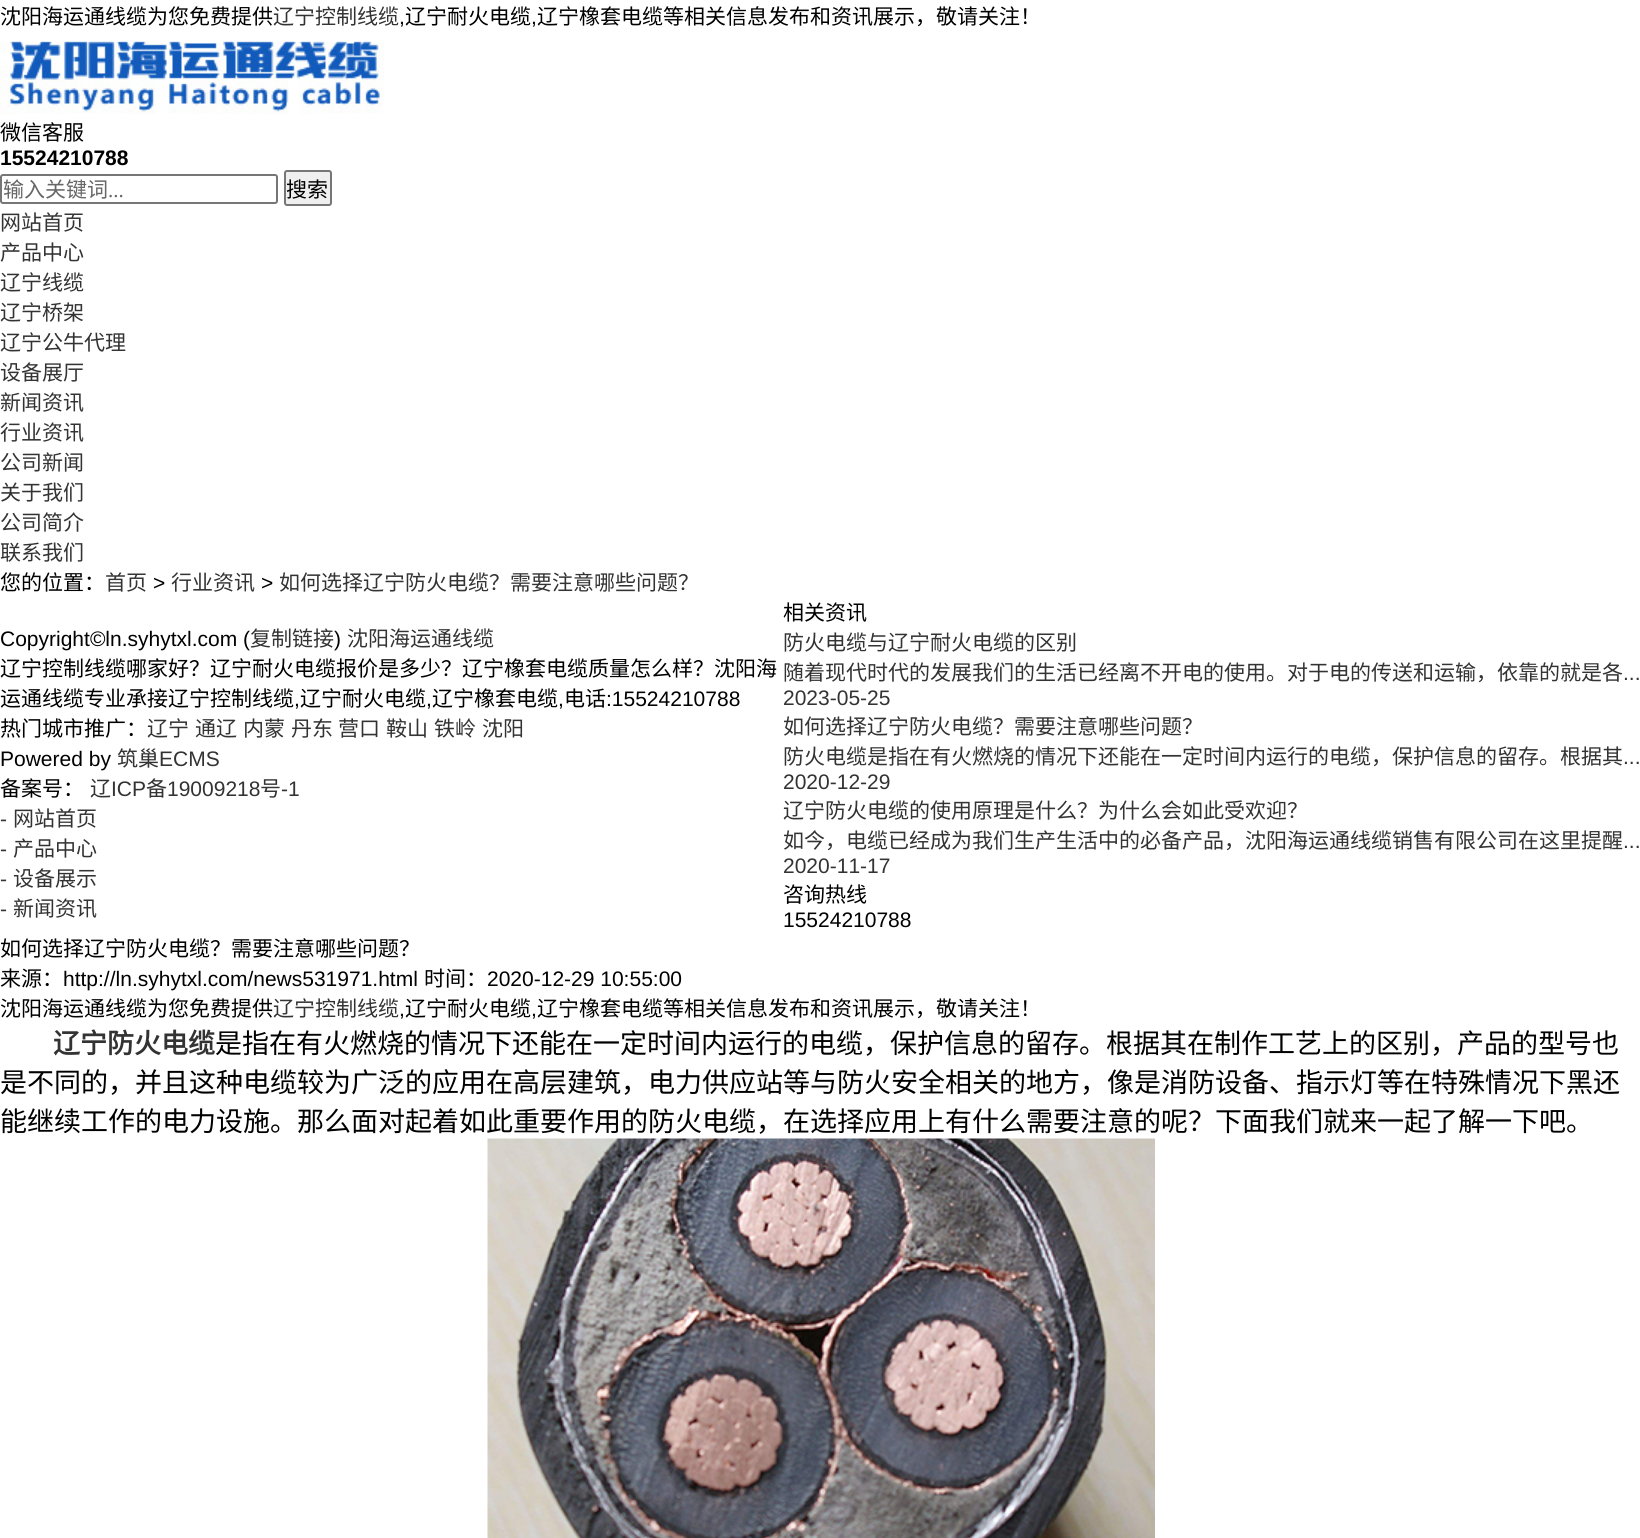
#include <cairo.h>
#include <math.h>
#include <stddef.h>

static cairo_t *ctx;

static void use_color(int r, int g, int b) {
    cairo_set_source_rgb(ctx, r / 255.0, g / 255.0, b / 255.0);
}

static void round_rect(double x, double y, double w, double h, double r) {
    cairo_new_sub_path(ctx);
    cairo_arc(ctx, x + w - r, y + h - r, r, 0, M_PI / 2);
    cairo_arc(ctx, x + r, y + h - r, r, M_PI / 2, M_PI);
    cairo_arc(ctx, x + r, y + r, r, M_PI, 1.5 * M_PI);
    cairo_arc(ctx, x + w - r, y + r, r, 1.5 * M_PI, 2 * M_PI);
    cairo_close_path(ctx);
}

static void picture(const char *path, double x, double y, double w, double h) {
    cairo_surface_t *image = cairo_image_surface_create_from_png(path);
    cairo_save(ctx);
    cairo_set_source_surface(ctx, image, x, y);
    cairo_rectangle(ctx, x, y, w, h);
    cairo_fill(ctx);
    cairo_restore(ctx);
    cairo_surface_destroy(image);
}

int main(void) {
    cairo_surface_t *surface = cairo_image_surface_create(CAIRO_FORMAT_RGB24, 1640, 1538);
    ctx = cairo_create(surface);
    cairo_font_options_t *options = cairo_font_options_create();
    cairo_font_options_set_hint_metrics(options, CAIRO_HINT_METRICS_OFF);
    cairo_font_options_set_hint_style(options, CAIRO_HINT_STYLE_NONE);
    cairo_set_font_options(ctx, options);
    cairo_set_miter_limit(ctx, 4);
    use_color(255, 255, 255);
    cairo_paint(ctx);
    cairo_select_font_face(ctx, "Noto Sans CJK SC", CAIRO_FONT_SLANT_NORMAL, CAIRO_FONT_WEIGHT_NORMAL);
    cairo_set_font_size(ctx, 21);
    use_color(0, 0, 0);
    cairo_move_to(ctx, 0, 24);
    cairo_show_text(ctx, "沈阳海运通线缆为您免费提供");
    use_color(51, 51, 51);
    cairo_move_to(ctx, 273, 24);
    cairo_show_text(ctx, "辽宁控制线缆");
    cairo_select_font_face(ctx, "Liberation Sans", CAIRO_FONT_SLANT_NORMAL, CAIRO_FONT_WEIGHT_NORMAL);
    use_color(0, 0, 0);
    cairo_move_to(ctx, 399, 24);
    cairo_show_text(ctx, ",");
    cairo_select_font_face(ctx, "Noto Sans CJK SC", CAIRO_FONT_SLANT_NORMAL, CAIRO_FONT_WEIGHT_NORMAL);
    cairo_move_to(ctx, 405, 24);
    cairo_show_text(ctx, "辽宁耐火电缆");
    cairo_select_font_face(ctx, "Liberation Sans", CAIRO_FONT_SLANT_NORMAL, CAIRO_FONT_WEIGHT_NORMAL);
    cairo_move_to(ctx, 531, 24);
    cairo_show_text(ctx, ",");
    cairo_select_font_face(ctx, "Noto Sans CJK SC", CAIRO_FONT_SLANT_NORMAL, CAIRO_FONT_WEIGHT_NORMAL);
    cairo_move_to(ctx, 537, 24);
    cairo_show_text(ctx, "辽宁橡套电缆等相关信息发布和资讯展示，敬请关注！");
    picture("img1.png", 0, 41, 384, 73);
    cairo_move_to(ctx, 0, 140);
    cairo_show_text(ctx, "微信客服");
    cairo_select_font_face(ctx, "Liberation Sans", CAIRO_FONT_SLANT_NORMAL, CAIRO_FONT_WEIGHT_BOLD);
    cairo_move_to(ctx, 0, 165);
    cairo_show_text(ctx, "15524210788");
    round_rect(1, 175, 276, 28, 2);
    use_color(118, 118, 118);
    cairo_stroke(ctx);
    cairo_select_font_face(ctx, "Noto Sans CJK SC", CAIRO_FONT_SLANT_NORMAL, CAIRO_FONT_WEIGHT_NORMAL);
    use_color(102, 102, 102);
    cairo_move_to(ctx, 3, 197);
    cairo_show_text(ctx, "输入关键词");
    cairo_select_font_face(ctx, "Liberation Serif", CAIRO_FONT_SLANT_NORMAL, CAIRO_FONT_WEIGHT_NORMAL);
    cairo_move_to(ctx, 108, 197);
    cairo_show_text(ctx, "...");
    use_color(239, 239, 239);
    round_rect(285, 171, 46, 34, 2);
    cairo_fill_preserve(ctx);
    use_color(118, 118, 118);
    cairo_stroke(ctx);
    cairo_select_font_face(ctx, "Noto Sans CJK SC", CAIRO_FONT_SLANT_NORMAL, CAIRO_FONT_WEIGHT_NORMAL);
    use_color(0, 0, 0);
    cairo_move_to(ctx, 286, 197);
    cairo_show_text(ctx, "搜索");
    use_color(51, 51, 51);
    cairo_move_to(ctx, 0, 230);
    cairo_show_text(ctx, "网站首页");
    cairo_move_to(ctx, 0, 260);
    cairo_show_text(ctx, "产品中心");
    cairo_move_to(ctx, 0, 290);
    cairo_show_text(ctx, "辽宁线缆");
    cairo_move_to(ctx, 0, 320);
    cairo_show_text(ctx, "辽宁桥架");
    cairo_move_to(ctx, 0, 350);
    cairo_show_text(ctx, "辽宁公牛代理");
    cairo_move_to(ctx, 0, 380);
    cairo_show_text(ctx, "设备展厅");
    cairo_move_to(ctx, 0, 410);
    cairo_show_text(ctx, "新闻资讯");
    cairo_move_to(ctx, 0, 440);
    cairo_show_text(ctx, "行业资讯");
    cairo_move_to(ctx, 0, 470);
    cairo_show_text(ctx, "公司新闻");
    cairo_move_to(ctx, 0, 500);
    cairo_show_text(ctx, "关于我们");
    cairo_move_to(ctx, 0, 530);
    cairo_show_text(ctx, "公司简介");
    cairo_move_to(ctx, 0, 560);
    cairo_show_text(ctx, "联系我们");
    use_color(0, 0, 0);
    cairo_move_to(ctx, 0, 590);
    cairo_show_text(ctx, "您的位置：");
    use_color(51, 51, 51);
    cairo_move_to(ctx, 105, 590);
    cairo_show_text(ctx, "首页");
    cairo_select_font_face(ctx, "Liberation Sans", CAIRO_FONT_SLANT_NORMAL, CAIRO_FONT_WEIGHT_NORMAL);
    use_color(0, 0, 0);
    cairo_move_to(ctx, 153, 590);
    cairo_show_text(ctx, ">");
    cairo_select_font_face(ctx, "Noto Sans CJK SC", CAIRO_FONT_SLANT_NORMAL, CAIRO_FONT_WEIGHT_NORMAL);
    use_color(51, 51, 51);
    cairo_move_to(ctx, 171, 590);
    cairo_show_text(ctx, "行业资讯");
    cairo_select_font_face(ctx, "Liberation Sans", CAIRO_FONT_SLANT_NORMAL, CAIRO_FONT_WEIGHT_NORMAL);
    use_color(0, 0, 0);
    cairo_move_to(ctx, 261, 590);
    cairo_show_text(ctx, ">");
    cairo_select_font_face(ctx, "Noto Sans CJK SC", CAIRO_FONT_SLANT_NORMAL, CAIRO_FONT_WEIGHT_NORMAL);
    use_color(51, 51, 51);
    cairo_move_to(ctx, 279, 590);
    cairo_show_text(ctx, "如何选择辽宁防火电缆？需要注意哪些问题？");
    use_color(0, 0, 0);
    cairo_move_to(ctx, 783, 620);
    cairo_show_text(ctx, "相关资讯");
    use_color(51, 51, 51);
    cairo_move_to(ctx, 783, 650);
    cairo_show_text(ctx, "防火电缆与辽宁耐火电缆的区别");
    cairo_move_to(ctx, 783, 680);
    cairo_show_text(ctx, "随着现代时代的发展我们的生活已经离不开电的使用。对于电的传送和运输，依靠的就是各");
    cairo_select_font_face(ctx, "Liberation Sans", CAIRO_FONT_SLANT_NORMAL, CAIRO_FONT_WEIGHT_NORMAL);
    cairo_move_to(ctx, 1623, 680);
    cairo_show_text(ctx, "...");
    cairo_move_to(ctx, 783, 705);
    cairo_show_text(ctx, "2023-05-25");
    cairo_select_font_face(ctx, "Noto Sans CJK SC", CAIRO_FONT_SLANT_NORMAL, CAIRO_FONT_WEIGHT_NORMAL);
    cairo_move_to(ctx, 783, 734);
    cairo_show_text(ctx, "如何选择辽宁防火电缆？需要注意哪些问题？");
    cairo_move_to(ctx, 783, 764);
    cairo_show_text(ctx, "防火电缆是指在有火燃烧的情况下还能在一定时间内运行的电缆，保护信息的留存。根据其");
    cairo_select_font_face(ctx, "Liberation Sans", CAIRO_FONT_SLANT_NORMAL, CAIRO_FONT_WEIGHT_NORMAL);
    cairo_move_to(ctx, 1623, 764);
    cairo_show_text(ctx, "...");
    cairo_move_to(ctx, 783, 789);
    cairo_show_text(ctx, "2020-12-29");
    cairo_select_font_face(ctx, "Noto Sans CJK SC", CAIRO_FONT_SLANT_NORMAL, CAIRO_FONT_WEIGHT_NORMAL);
    cairo_move_to(ctx, 783, 818);
    cairo_show_text(ctx, "辽宁防火电缆的使用原理是什么？为什么会如此受欢迎？");
    cairo_move_to(ctx, 783, 848);
    cairo_show_text(ctx, "如今，电缆已经成为我们生产生活中的必备产品，沈阳海运通线缆销售有限公司在这里提醒");
    cairo_select_font_face(ctx, "Liberation Sans", CAIRO_FONT_SLANT_NORMAL, CAIRO_FONT_WEIGHT_NORMAL);
    cairo_move_to(ctx, 1623, 848);
    cairo_show_text(ctx, "...");
    cairo_move_to(ctx, 783, 873);
    cairo_show_text(ctx, "2020-11-17");
    cairo_select_font_face(ctx, "Noto Sans CJK SC", CAIRO_FONT_SLANT_NORMAL, CAIRO_FONT_WEIGHT_NORMAL);
    use_color(0, 0, 0);
    cairo_move_to(ctx, 783, 902);
    cairo_show_text(ctx, "咨询热线");
    cairo_select_font_face(ctx, "Liberation Sans", CAIRO_FONT_SLANT_NORMAL, CAIRO_FONT_WEIGHT_NORMAL);
    cairo_move_to(ctx, 783, 927);
    cairo_show_text(ctx, "15524210788");
    cairo_select_font_face(ctx, "Noto Sans CJK SC", CAIRO_FONT_SLANT_NORMAL, CAIRO_FONT_WEIGHT_NORMAL);
    cairo_move_to(ctx, 0, 956);
    cairo_show_text(ctx, "如何选择辽宁防火电缆？需要注意哪些问题？");
    cairo_move_to(ctx, 0, 986);
    cairo_show_text(ctx, "来源：");
    cairo_select_font_face(ctx, "Liberation Sans", CAIRO_FONT_SLANT_NORMAL, CAIRO_FONT_WEIGHT_NORMAL);
    cairo_move_to(ctx, 63, 986);
    cairo_show_text(ctx, "http://ln.syhytxl.com/news531971.html");
    cairo_select_font_face(ctx, "Noto Sans CJK SC", CAIRO_FONT_SLANT_NORMAL, CAIRO_FONT_WEIGHT_NORMAL);
    cairo_move_to(ctx, 424, 986);
    cairo_show_text(ctx, "时间：");
    cairo_select_font_face(ctx, "Liberation Sans", CAIRO_FONT_SLANT_NORMAL, CAIRO_FONT_WEIGHT_NORMAL);
    cairo_move_to(ctx, 487, 986);
    cairo_show_text(ctx, "2020-12-29 10:55:00");
    cairo_select_font_face(ctx, "Noto Sans CJK SC", CAIRO_FONT_SLANT_NORMAL, CAIRO_FONT_WEIGHT_NORMAL);
    cairo_move_to(ctx, 0, 1016);
    cairo_show_text(ctx, "沈阳海运通线缆为您免费提供");
    use_color(51, 51, 51);
    cairo_move_to(ctx, 273, 1016);
    cairo_show_text(ctx, "辽宁控制线缆");
    cairo_select_font_face(ctx, "Liberation Sans", CAIRO_FONT_SLANT_NORMAL, CAIRO_FONT_WEIGHT_NORMAL);
    use_color(0, 0, 0);
    cairo_move_to(ctx, 399, 1016);
    cairo_show_text(ctx, ",");
    cairo_select_font_face(ctx, "Noto Sans CJK SC", CAIRO_FONT_SLANT_NORMAL, CAIRO_FONT_WEIGHT_NORMAL);
    cairo_move_to(ctx, 405, 1016);
    cairo_show_text(ctx, "辽宁耐火电缆");
    cairo_select_font_face(ctx, "Liberation Sans", CAIRO_FONT_SLANT_NORMAL, CAIRO_FONT_WEIGHT_NORMAL);
    cairo_move_to(ctx, 531, 1016);
    cairo_show_text(ctx, ",");
    cairo_select_font_face(ctx, "Noto Sans CJK SC", CAIRO_FONT_SLANT_NORMAL, CAIRO_FONT_WEIGHT_NORMAL);
    cairo_move_to(ctx, 537, 1016);
    cairo_show_text(ctx, "辽宁橡套电缆等相关信息发布和资讯展示，敬请关注！");
    cairo_select_font_face(ctx, "Noto Sans CJK SC", CAIRO_FONT_SLANT_NORMAL, CAIRO_FONT_WEIGHT_BOLD);
    cairo_set_font_size(ctx, 27);
    use_color(51, 51, 51);
    cairo_move_to(ctx, 53, 1053);
    cairo_show_text(ctx, "辽宁防火电缆");
    cairo_select_font_face(ctx, "Noto Sans CJK SC", CAIRO_FONT_SLANT_NORMAL, CAIRO_FONT_WEIGHT_NORMAL);
    use_color(0, 0, 0);
    cairo_move_to(ctx, 215, 1053);
    cairo_show_text(ctx, "是指在有火燃烧的情况下还能在一定时间内运行的电缆，保护信息的留存。根据其在制作工艺上的区别，产品的型号也");
    cairo_move_to(ctx, 0, 1092);
    cairo_show_text(ctx, "是不同的，并且这种电缆较为广泛的应用在高层建筑，电力供应站等与防火安全相关的地方，像是消防设备、指示灯等在特殊情况下黑还");
    cairo_move_to(ctx, 0, 1131);
    cairo_show_text(ctx, "能继续工作的电力设施。那么面对起着如此重要作用的防火电缆，在选择应用上有什么需要注意的呢？下面我们就来一起了解一下吧。");
    picture("img2.png", 487, 1138, 668, 400);
    cairo_select_font_face(ctx, "Liberation Sans", CAIRO_FONT_SLANT_NORMAL, CAIRO_FONT_WEIGHT_NORMAL);
    cairo_set_font_size(ctx, 21);
    cairo_move_to(ctx, 0, 646);
    cairo_show_text(ctx, "Copyright©ln.syhytxl.com (");
    cairo_select_font_face(ctx, "Noto Sans CJK SC", CAIRO_FONT_SLANT_NORMAL, CAIRO_FONT_WEIGHT_NORMAL);
    use_color(51, 51, 51);
    cairo_move_to(ctx, 250, 646);
    cairo_show_text(ctx, "复制链接");
    cairo_select_font_face(ctx, "Liberation Sans", CAIRO_FONT_SLANT_NORMAL, CAIRO_FONT_WEIGHT_NORMAL);
    use_color(0, 0, 0);
    cairo_move_to(ctx, 334, 646);
    cairo_show_text(ctx, ")");
    cairo_select_font_face(ctx, "Noto Sans CJK SC", CAIRO_FONT_SLANT_NORMAL, CAIRO_FONT_WEIGHT_NORMAL);
    use_color(51, 51, 51);
    cairo_move_to(ctx, 347, 646);
    cairo_show_text(ctx, "沈阳海运通线缆");
    use_color(0, 0, 0);
    cairo_move_to(ctx, 0, 676);
    cairo_show_text(ctx, "辽宁控制线缆哪家好？辽宁耐火电缆报价是多少？辽宁橡套电缆质量怎么样？沈阳海");
    cairo_move_to(ctx, 0, 706);
    cairo_show_text(ctx, "运通线缆专业承接辽宁控制线缆");
    cairo_select_font_face(ctx, "Liberation Sans", CAIRO_FONT_SLANT_NORMAL, CAIRO_FONT_WEIGHT_NORMAL);
    cairo_move_to(ctx, 294, 706);
    cairo_show_text(ctx, ",");
    cairo_select_font_face(ctx, "Noto Sans CJK SC", CAIRO_FONT_SLANT_NORMAL, CAIRO_FONT_WEIGHT_NORMAL);
    cairo_move_to(ctx, 300, 706);
    cairo_show_text(ctx, "辽宁耐火电缆");
    cairo_select_font_face(ctx, "Liberation Sans", CAIRO_FONT_SLANT_NORMAL, CAIRO_FONT_WEIGHT_NORMAL);
    cairo_move_to(ctx, 426, 706);
    cairo_show_text(ctx, ",");
    cairo_select_font_face(ctx, "Noto Sans CJK SC", CAIRO_FONT_SLANT_NORMAL, CAIRO_FONT_WEIGHT_NORMAL);
    cairo_move_to(ctx, 432, 706);
    cairo_show_text(ctx, "辽宁橡套电缆");
    cairo_select_font_face(ctx, "Liberation Sans", CAIRO_FONT_SLANT_NORMAL, CAIRO_FONT_WEIGHT_NORMAL);
    cairo_move_to(ctx, 558, 706);
    cairo_show_text(ctx, ",");
    cairo_select_font_face(ctx, "Noto Sans CJK SC", CAIRO_FONT_SLANT_NORMAL, CAIRO_FONT_WEIGHT_NORMAL);
    cairo_move_to(ctx, 564, 706);
    cairo_show_text(ctx, "电话");
    cairo_select_font_face(ctx, "Liberation Sans", CAIRO_FONT_SLANT_NORMAL, CAIRO_FONT_WEIGHT_NORMAL);
    cairo_move_to(ctx, 606, 706);
    cairo_show_text(ctx, ":15524210788");
    cairo_select_font_face(ctx, "Noto Sans CJK SC", CAIRO_FONT_SLANT_NORMAL, CAIRO_FONT_WEIGHT_NORMAL);
    cairo_move_to(ctx, 0, 736);
    cairo_show_text(ctx, "热门城市推广：");
    use_color(51, 51, 51);
    cairo_move_to(ctx, 147, 736);
    cairo_show_text(ctx, "辽宁");
    cairo_move_to(ctx, 195, 736);
    cairo_show_text(ctx, "通辽");
    cairo_move_to(ctx, 243, 736);
    cairo_show_text(ctx, "内蒙");
    cairo_move_to(ctx, 291, 736);
    cairo_show_text(ctx, "丹东");
    cairo_move_to(ctx, 338, 736);
    cairo_show_text(ctx, "营口");
    cairo_move_to(ctx, 386, 736);
    cairo_show_text(ctx, "鞍山");
    cairo_move_to(ctx, 434, 736);
    cairo_show_text(ctx, "铁岭");
    cairo_move_to(ctx, 482, 736);
    cairo_show_text(ctx, "沈阳");
    cairo_select_font_face(ctx, "Liberation Sans", CAIRO_FONT_SLANT_NORMAL, CAIRO_FONT_WEIGHT_NORMAL);
    use_color(0, 0, 0);
    cairo_move_to(ctx, 0, 766);
    cairo_show_text(ctx, "Powered by");
    cairo_select_font_face(ctx, "Noto Sans CJK SC", CAIRO_FONT_SLANT_NORMAL, CAIRO_FONT_WEIGHT_NORMAL);
    use_color(51, 51, 51);
    cairo_move_to(ctx, 117, 766);
    cairo_show_text(ctx, "筑巢");
    cairo_select_font_face(ctx, "Liberation Sans", CAIRO_FONT_SLANT_NORMAL, CAIRO_FONT_WEIGHT_NORMAL);
    cairo_move_to(ctx, 159, 766);
    cairo_show_text(ctx, "ECMS");
    cairo_select_font_face(ctx, "Noto Sans CJK SC", CAIRO_FONT_SLANT_NORMAL, CAIRO_FONT_WEIGHT_NORMAL);
    use_color(0, 0, 0);
    cairo_move_to(ctx, 0, 796);
    cairo_show_text(ctx, "备案号：");
    use_color(51, 51, 51);
    cairo_move_to(ctx, 90, 796);
    cairo_show_text(ctx, "辽");
    cairo_select_font_face(ctx, "Liberation Sans", CAIRO_FONT_SLANT_NORMAL, CAIRO_FONT_WEIGHT_NORMAL);
    cairo_move_to(ctx, 111, 796);
    cairo_show_text(ctx, "ICP");
    cairo_select_font_face(ctx, "Noto Sans CJK SC", CAIRO_FONT_SLANT_NORMAL, CAIRO_FONT_WEIGHT_NORMAL);
    cairo_move_to(ctx, 146, 796);
    cairo_show_text(ctx, "备");
    cairo_select_font_face(ctx, "Liberation Sans", CAIRO_FONT_SLANT_NORMAL, CAIRO_FONT_WEIGHT_NORMAL);
    cairo_move_to(ctx, 167, 796);
    cairo_show_text(ctx, "19009218");
    cairo_select_font_face(ctx, "Noto Sans CJK SC", CAIRO_FONT_SLANT_NORMAL, CAIRO_FONT_WEIGHT_NORMAL);
    cairo_move_to(ctx, 260, 796);
    cairo_show_text(ctx, "号");
    cairo_select_font_face(ctx, "Liberation Sans", CAIRO_FONT_SLANT_NORMAL, CAIRO_FONT_WEIGHT_NORMAL);
    cairo_move_to(ctx, 281, 796);
    cairo_show_text(ctx, "-1");
    cairo_move_to(ctx, 0, 826);
    cairo_show_text(ctx, "-");
    cairo_select_font_face(ctx, "Noto Sans CJK SC", CAIRO_FONT_SLANT_NORMAL, CAIRO_FONT_WEIGHT_NORMAL);
    cairo_move_to(ctx, 13, 826);
    cairo_show_text(ctx, "网站首页");
    cairo_select_font_face(ctx, "Liberation Sans", CAIRO_FONT_SLANT_NORMAL, CAIRO_FONT_WEIGHT_NORMAL);
    cairo_move_to(ctx, 0, 856);
    cairo_show_text(ctx, "-");
    cairo_select_font_face(ctx, "Noto Sans CJK SC", CAIRO_FONT_SLANT_NORMAL, CAIRO_FONT_WEIGHT_NORMAL);
    cairo_move_to(ctx, 13, 856);
    cairo_show_text(ctx, "产品中心");
    cairo_select_font_face(ctx, "Liberation Sans", CAIRO_FONT_SLANT_NORMAL, CAIRO_FONT_WEIGHT_NORMAL);
    cairo_move_to(ctx, 0, 886);
    cairo_show_text(ctx, "-");
    cairo_select_font_face(ctx, "Noto Sans CJK SC", CAIRO_FONT_SLANT_NORMAL, CAIRO_FONT_WEIGHT_NORMAL);
    cairo_move_to(ctx, 13, 886);
    cairo_show_text(ctx, "设备展示");
    cairo_select_font_face(ctx, "Liberation Sans", CAIRO_FONT_SLANT_NORMAL, CAIRO_FONT_WEIGHT_NORMAL);
    cairo_move_to(ctx, 0, 916);
    cairo_show_text(ctx, "-");
    cairo_select_font_face(ctx, "Noto Sans CJK SC", CAIRO_FONT_SLANT_NORMAL, CAIRO_FONT_WEIGHT_NORMAL);
    cairo_move_to(ctx, 13, 916);
    cairo_show_text(ctx, "新闻资讯");
    cairo_surface_write_to_png(surface, "result.png");
    cairo_font_options_destroy(options);
    cairo_destroy(ctx);
    cairo_surface_destroy(surface);
    return 0;
}
